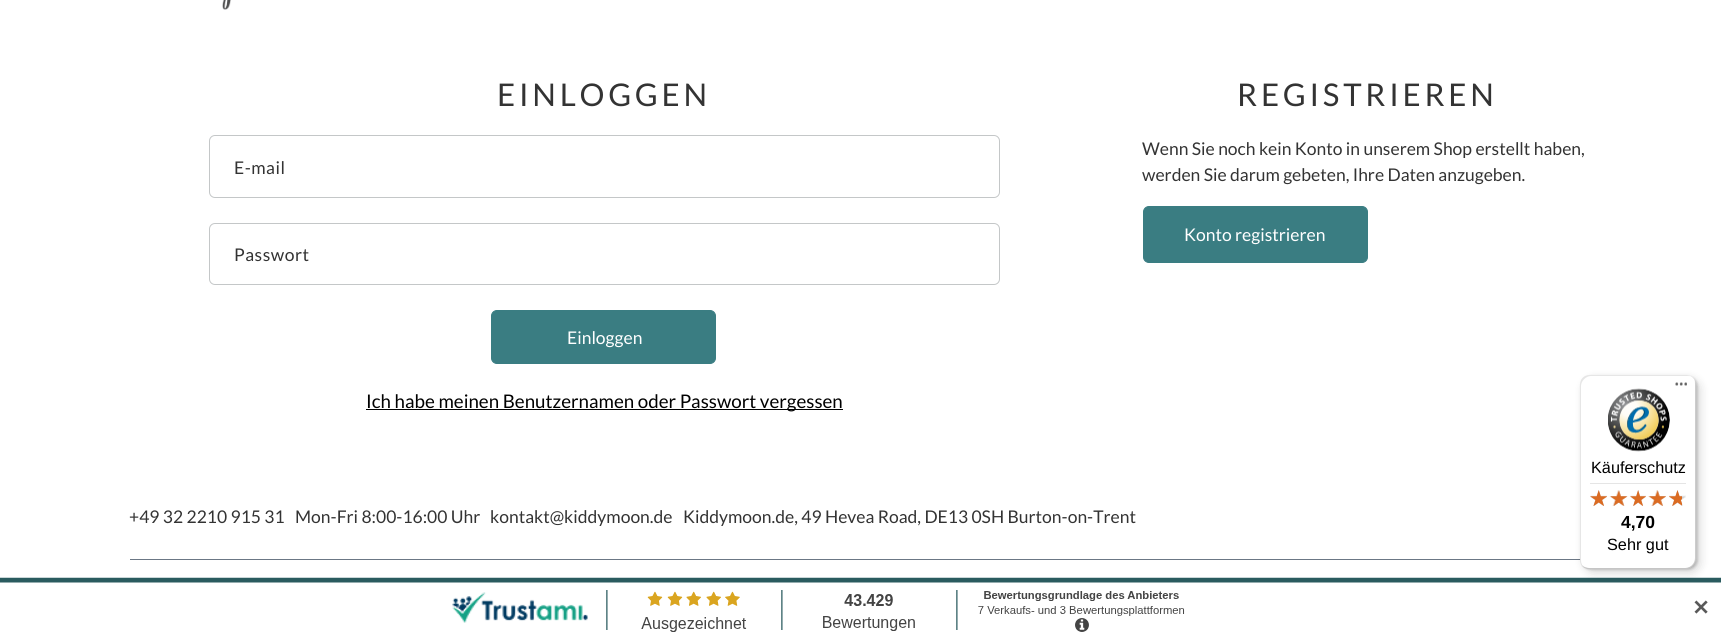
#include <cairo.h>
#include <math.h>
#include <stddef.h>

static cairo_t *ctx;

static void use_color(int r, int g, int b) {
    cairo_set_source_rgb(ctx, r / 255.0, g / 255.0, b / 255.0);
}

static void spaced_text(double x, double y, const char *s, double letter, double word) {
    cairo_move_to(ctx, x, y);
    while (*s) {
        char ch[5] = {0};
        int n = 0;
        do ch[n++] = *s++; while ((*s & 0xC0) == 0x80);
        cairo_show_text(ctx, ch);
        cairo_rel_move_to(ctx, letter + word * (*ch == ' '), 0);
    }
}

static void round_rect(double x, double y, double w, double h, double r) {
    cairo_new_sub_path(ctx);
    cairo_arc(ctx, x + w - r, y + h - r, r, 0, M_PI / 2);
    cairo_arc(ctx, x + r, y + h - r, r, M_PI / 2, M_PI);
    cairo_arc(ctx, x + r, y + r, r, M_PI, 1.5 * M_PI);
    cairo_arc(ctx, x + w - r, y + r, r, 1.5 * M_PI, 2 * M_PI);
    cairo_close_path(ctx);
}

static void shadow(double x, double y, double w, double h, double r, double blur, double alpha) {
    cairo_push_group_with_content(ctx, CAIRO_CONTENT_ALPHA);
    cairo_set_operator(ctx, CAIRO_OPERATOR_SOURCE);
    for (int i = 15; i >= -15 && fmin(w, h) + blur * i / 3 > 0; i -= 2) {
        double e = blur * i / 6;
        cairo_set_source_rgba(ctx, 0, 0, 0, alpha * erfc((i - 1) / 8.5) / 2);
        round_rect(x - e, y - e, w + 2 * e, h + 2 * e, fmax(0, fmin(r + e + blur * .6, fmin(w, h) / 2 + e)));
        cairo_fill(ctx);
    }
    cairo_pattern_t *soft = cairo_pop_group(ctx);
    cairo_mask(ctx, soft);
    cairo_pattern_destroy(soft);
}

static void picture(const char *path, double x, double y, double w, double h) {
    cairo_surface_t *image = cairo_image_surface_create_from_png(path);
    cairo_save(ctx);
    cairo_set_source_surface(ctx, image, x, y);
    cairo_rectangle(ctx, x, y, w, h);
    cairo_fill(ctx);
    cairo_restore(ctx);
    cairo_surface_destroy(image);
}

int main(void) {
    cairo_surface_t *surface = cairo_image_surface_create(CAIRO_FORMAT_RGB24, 1721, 636);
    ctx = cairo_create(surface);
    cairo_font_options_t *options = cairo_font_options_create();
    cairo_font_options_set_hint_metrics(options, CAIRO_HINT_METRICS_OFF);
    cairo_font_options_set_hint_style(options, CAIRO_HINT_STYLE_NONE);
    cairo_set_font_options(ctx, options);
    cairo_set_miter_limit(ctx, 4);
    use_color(255, 255, 255);
    cairo_paint(ctx);
    picture("img1.png", 222, 0, 9, 10);
    cairo_select_font_face(ctx, "Lato", CAIRO_FONT_SLANT_NORMAL, CAIRO_FONT_WEIGHT_NORMAL);
    cairo_set_font_size(ctx, 31.25);
    use_color(51, 51, 51);
    spaced_text(497, 106, "EINLOGGEN", 3.75, 0);
    round_rect(209.5, 135.5, 790, 62, 5.5);
    use_color(196, 199, 200);
    cairo_set_line_width(ctx, 1);
    cairo_stroke(ctx);
    cairo_set_font_size(ctx, 17.5);
    use_color(51, 51, 51);
    spaced_text(234, 174, "E-mail", 0.5, 0);
    round_rect(209.5, 223.5, 790, 61, 5.5);
    use_color(196, 199, 200);
    cairo_stroke(ctx);
    use_color(51, 51, 51);
    spaced_text(234, 261, "Passwort", 0.5, 0);
    use_color(58, 125, 130);
    round_rect(491.5, 310.5, 224, 53, 5.5);
    cairo_fill_preserve(ctx);
    cairo_stroke(ctx);
    use_color(255, 255, 255);
    cairo_move_to(ctx, 567, 344);
    cairo_show_text(ctx, "Einloggen");
    use_color(0, 0, 0);
    cairo_rectangle(ctx, 366, 409, 477, 1);
    cairo_fill(ctx);
    cairo_set_font_size(ctx, 18.75);
    cairo_move_to(ctx, 366, 408);
    cairo_show_text(ctx, "Ich habe meinen Benutzernamen oder Passwort vergessen");
    cairo_set_font_size(ctx, 31.25);
    use_color(51, 51, 51);
    spaced_text(1237, 106, "REGISTRIEREN", 3.75, 0);
    cairo_set_font_size(ctx, 17.5);
    cairo_move_to(ctx, 1142, 155);
    cairo_show_text(ctx, "Wenn Sie noch kein Konto in unserem Shop erstellt haben,");
    cairo_move_to(ctx, 1142, 181);
    cairo_show_text(ctx, "werden Sie darum gebeten, Ihre Daten anzugeben.");
    use_color(58, 125, 130);
    round_rect(1143.5, 206.5, 224, 56, 5.5);
    cairo_fill_preserve(ctx);
    cairo_stroke(ctx);
    use_color(255, 255, 255);
    cairo_move_to(ctx, 1184, 241);
    cairo_show_text(ctx, "Konto registrieren");
    use_color(107, 119, 133);
    cairo_rectangle(ctx, 130, 559, 1451, 1);
    cairo_fill(ctx);
    use_color(51, 51, 51);
    cairo_move_to(ctx, 129, 523);
    cairo_show_text(ctx, "+49 32 2210 915 31");
    cairo_move_to(ctx, 295, 523);
    cairo_show_text(ctx, "Mon-Fri 8:00-16:00 Uhr");
    cairo_move_to(ctx, 490, 523);
    cairo_show_text(ctx, "kontakt@kiddymoon.de");
    cairo_move_to(ctx, 683, 523);
    cairo_show_text(ctx, "Kiddymoon.de, 49 Hevea Road, DE13 0SH Burton-on-Trent");
    picture("img14.png", 0, 577, 1721, 55);
    use_color(0, 0, 0);
    shadow(1584, 379, 116, 194, 10, 5, 0.15);
    shadow(1581, 376, 117, 194, 10, 1, 0.15);
    use_color(255, 255, 255);
    round_rect(1580, 375, 116, 194, 10);
    cairo_fill(ctx);
    cairo_set_source_rgba(ctx, 0, 0, 0, 0.1);
    cairo_new_path(ctx);
    cairo_move_to(ctx, 1591, 376);
    cairo_line_to(ctx, 1688, 376);
    cairo_curve_to(ctx, 1689, 376, 1691, 376, 1692, 377);
    cairo_curve_to(ctx, 1690, 376, 1688, 375, 1686, 375);
    cairo_line_to(ctx, 1590, 375);
    cairo_curve_to(ctx, 1584, 375, 1580, 379, 1580, 385);
    cairo_line_to(ctx, 1580, 559);
    cairo_curve_to(ctx, 1580, 562, 1581, 565, 1583, 567);
    cairo_curve_to(ctx, 1582, 565, 1581, 563, 1581, 560);
    cairo_line_to(ctx, 1581, 386);
    cairo_curve_to(ctx, 1581, 381, 1586, 376, 1591, 376);
    cairo_close_path(ctx);
    cairo_fill(ctx);
    cairo_set_source_rgba(ctx, 0, 0, 0, 0.2);
    cairo_new_path(ctx);
    cairo_move_to(ctx, 1582, 566);
    cairo_curve_to(ctx, 1584, 568, 1587, 569, 1590, 569);
    cairo_line_to(ctx, 1686, 569);
    cairo_curve_to(ctx, 1692, 569, 1696, 565, 1696, 559);
    cairo_line_to(ctx, 1696, 385);
    cairo_curve_to(ctx, 1696, 383, 1695, 380, 1694, 379);
    cairo_curve_to(ctx, 1695, 380, 1695, 382, 1695, 384);
    cairo_line_to(ctx, 1695, 558);
    cairo_curve_to(ctx, 1695, 563, 1691, 568, 1685, 568);
    cairo_line_to(ctx, 1589, 568);
    cairo_curve_to(ctx, 1586, 568, 1584, 567, 1582, 566);
    cairo_close_path(ctx);
    cairo_fill(ctx);
    picture("img2.png", 1675, 382, 12, 4);
    cairo_set_source_rgba(ctx, 0.196, 0.196, 0.196, 0.2);
    cairo_new_path(ctx);
    cairo_move_to(ctx, 1582, 565);
    cairo_curve_to(ctx, 1584, 568, 1587, 569, 1590, 569);
    cairo_line_to(ctx, 1686, 569);
    cairo_curve_to(ctx, 1692, 569, 1696, 565, 1696, 559);
    cairo_line_to(ctx, 1696, 558);
    cairo_curve_to(ctx, 1696, 564, 1691, 568, 1686, 568);
    cairo_line_to(ctx, 1589, 568);
    cairo_curve_to(ctx, 1587, 568, 1584, 567, 1582, 565);
    cairo_close_path(ctx);
    cairo_fill(ctx);
    cairo_set_source_rgba(ctx, 1, 1, 1, 0.3);
    cairo_new_path(ctx);
    cairo_move_to(ctx, 1582, 565);
    cairo_curve_to(ctx, 1584, 568, 1587, 569, 1590, 569);
    cairo_line_to(ctx, 1686, 569);
    cairo_curve_to(ctx, 1692, 569, 1696, 565, 1696, 559);
    cairo_line_to(ctx, 1696, 558);
    cairo_curve_to(ctx, 1696, 564, 1691, 568, 1686, 568);
    cairo_line_to(ctx, 1589, 568);
    cairo_curve_to(ctx, 1587, 568, 1584, 567, 1582, 565);
    cairo_close_path(ctx);
    cairo_fill(ctx);
    picture("img3.png", 1608, 388, 62, 64);
    cairo_select_font_face(ctx, "Liberation Sans", CAIRO_FONT_SLANT_NORMAL, CAIRO_FONT_WEIGHT_NORMAL);
    cairo_set_font_size(ctx, 16.25);
    use_color(0, 0, 0);
    cairo_move_to(ctx, 1591, 473);
    cairo_show_text(ctx, "Käuferschutz");
    use_color(229, 229, 229);
    cairo_rectangle(ctx, 1590, 483, 96, 1);
    cairo_fill(ctx);
    picture("img4.png", 1590, 490, 17, 16);
    picture("img5.png", 1610, 490, 17, 16);
    picture("img6.png", 1630, 490, 16, 16);
    picture("img7.png", 1648, 490, 18, 16);
    picture("img8.png", 1669, 490, 17, 16);
    picture("img9.png", 1590, 490, 17, 16);
    picture("img10.png", 1609, 490, 19, 16);
    picture("img11.png", 1630, 490, 16, 16);
    picture("img12.png", 1648, 490, 18, 16);
    picture("img13.png", 1669, 490, 13, 16);
    cairo_select_font_face(ctx, "Liberation Sans", CAIRO_FONT_SLANT_NORMAL, CAIRO_FONT_WEIGHT_BOLD);
    cairo_set_font_size(ctx, 17.5);
    use_color(0, 0, 0);
    cairo_move_to(ctx, 1621, 528);
    cairo_show_text(ctx, "4,70");
    cairo_select_font_face(ctx, "Liberation Sans", CAIRO_FONT_SLANT_NORMAL, CAIRO_FONT_WEIGHT_NORMAL);
    cairo_set_font_size(ctx, 16.25);
    cairo_move_to(ctx, 1607, 550);
    cairo_show_text(ctx, "Sehr gut");
    cairo_select_font_face(ctx, "DejaVu Sans", CAIRO_FONT_SLANT_NORMAL, CAIRO_FONT_WEIGHT_BOLD);
    cairo_set_font_size(ctx, 21);
    use_color(89, 89, 89);
    cairo_move_to(ctx, 1692, 615);
    cairo_show_text(ctx, "✕");
    cairo_surface_write_to_png(surface, "result.png");
    cairo_font_options_destroy(options);
    cairo_destroy(ctx);
    cairo_surface_destroy(surface);
    return 0;
}
